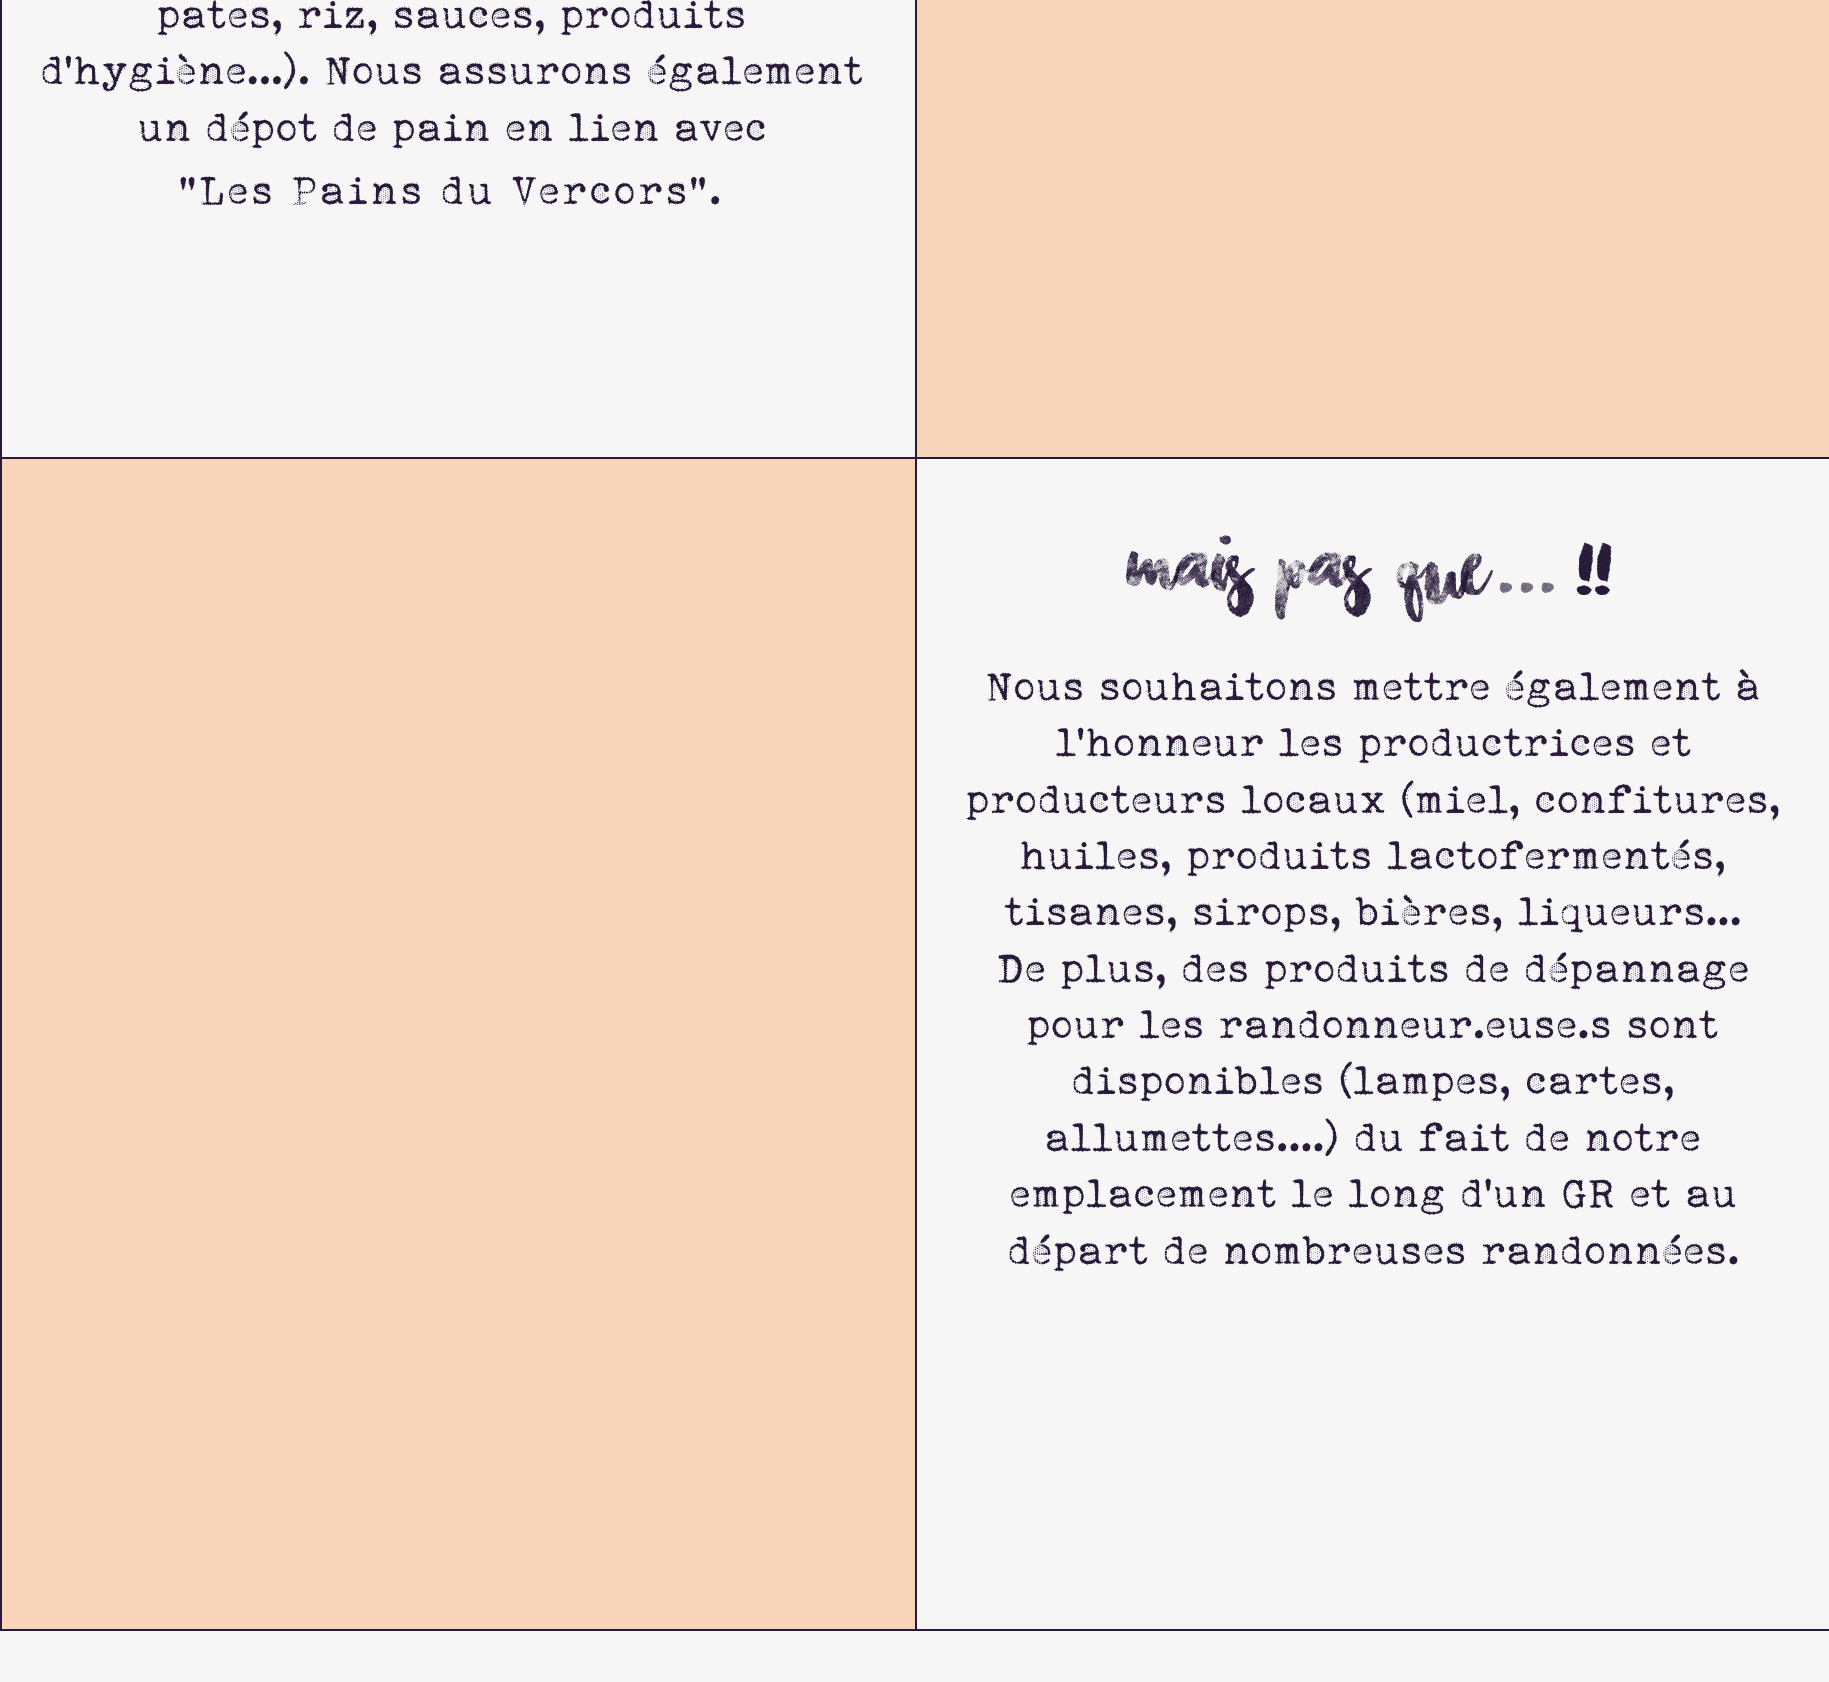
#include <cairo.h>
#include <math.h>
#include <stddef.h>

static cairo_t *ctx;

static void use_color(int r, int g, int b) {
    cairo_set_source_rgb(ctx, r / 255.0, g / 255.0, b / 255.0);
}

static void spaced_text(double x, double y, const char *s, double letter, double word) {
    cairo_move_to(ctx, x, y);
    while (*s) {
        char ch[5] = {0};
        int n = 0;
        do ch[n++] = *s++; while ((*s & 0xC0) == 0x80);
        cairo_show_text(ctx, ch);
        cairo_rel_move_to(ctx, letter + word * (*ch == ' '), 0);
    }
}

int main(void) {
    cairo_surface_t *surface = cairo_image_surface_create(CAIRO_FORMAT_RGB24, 1829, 1682);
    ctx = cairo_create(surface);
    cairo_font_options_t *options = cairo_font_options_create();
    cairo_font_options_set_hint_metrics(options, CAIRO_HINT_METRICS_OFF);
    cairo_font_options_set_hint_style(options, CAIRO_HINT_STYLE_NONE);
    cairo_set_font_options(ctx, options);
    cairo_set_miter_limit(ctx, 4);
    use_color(246, 246, 246);
    cairo_paint(ctx);
    use_color(40, 26, 57);
    cairo_rectangle(ctx, 0, 0, 917, 457);
    cairo_fill(ctx);
    use_color(246, 246, 246);
    cairo_rectangle(ctx, 2, 0, 913, 457);
    cairo_fill(ctx);
    cairo_select_font_face(ctx, "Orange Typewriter", CAIRO_FONT_SLANT_NORMAL, CAIRO_FONT_WEIGHT_NORMAL);
    cairo_set_font_size(ctx, 40.25);
    use_color(40, 26, 57);
    cairo_move_to(ctx, 156, 28);
    cairo_show_text(ctx, "pates, riz, sauces, produits");
    cairo_move_to(ctx, 40, 84);
    cairo_show_text(ctx, "d'hygiène...). Nous assurons également");
    cairo_move_to(ctx, 137, 141);
    cairo_show_text(ctx, "un dépot de pain en lien avec");
    spaced_text(179, 204, "\"Les Pains du Vercors\".", 2, 0);
    use_color(247, 212, 186);
    cairo_rectangle(ctx, 917, 0, 912, 457);
    cairo_fill(ctx);
    use_color(40, 26, 57);
    cairo_rectangle(ctx, 0, 457, 1829, 1174);
    cairo_fill(ctx);
    use_color(247, 212, 186);
    cairo_rectangle(ctx, 2, 459, 913, 1170);
    cairo_fill(ctx);
    use_color(246, 246, 246);
    cairo_rectangle(ctx, 917, 459, 912, 1170);
    cairo_fill(ctx);
    cairo_select_font_face(ctx, "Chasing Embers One", CAIRO_FONT_SLANT_NORMAL, CAIRO_FONT_WEIGHT_NORMAL);
    cairo_set_font_size(ctx, 103.25);
    use_color(40, 26, 57);
    cairo_move_to(ctx, 1129, 595);
    cairo_show_text(ctx, "mais pas que... !!");
    cairo_select_font_face(ctx, "Orange Typewriter", CAIRO_FONT_SLANT_NORMAL, CAIRO_FONT_WEIGHT_NORMAL);
    cairo_set_font_size(ctx, 40.25);
    cairo_move_to(ctx, 985, 700);
    cairo_show_text(ctx, "Nous souhaitons mettre également à");
    cairo_move_to(ctx, 1055, 756);
    cairo_show_text(ctx, "l'honneur les productrices et");
    cairo_move_to(ctx, 965, 813);
    cairo_show_text(ctx, "producteurs locaux (miel, confitures,");
    cairo_move_to(ctx, 1019, 869);
    cairo_show_text(ctx, "huiles, produits lactofermentés,");
    cairo_move_to(ctx, 1004, 925);
    cairo_show_text(ctx, "tisanes, sirops, bières, liqueurs...");
    cairo_move_to(ctx, 996, 982);
    cairo_show_text(ctx, "De plus, des produits de dépannage");
    cairo_move_to(ctx, 1026, 1038);
    cairo_show_text(ctx, "pour les randonneur.euse.s sont");
    cairo_move_to(ctx, 1071, 1094);
    cairo_show_text(ctx, "disponibles (lampes, cartes,");
    cairo_move_to(ctx, 1044, 1151);
    cairo_show_text(ctx, "allumettes....) du fait de notre");
    cairo_move_to(ctx, 1009, 1207);
    cairo_show_text(ctx, "emplacement le long d'un GR et au");
    cairo_move_to(ctx, 1007, 1264);
    cairo_show_text(ctx, "départ de nombreuses randonnées.");
    cairo_surface_write_to_png(surface, "result.png");
    cairo_font_options_destroy(options);
    cairo_destroy(ctx);
    cairo_surface_destroy(surface);
    return 0;
}
